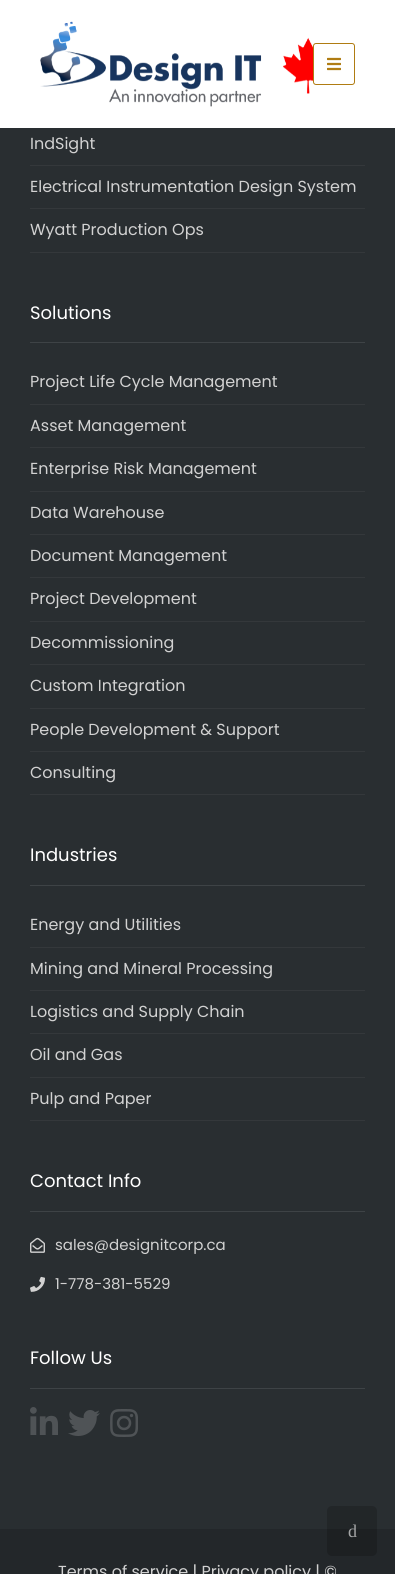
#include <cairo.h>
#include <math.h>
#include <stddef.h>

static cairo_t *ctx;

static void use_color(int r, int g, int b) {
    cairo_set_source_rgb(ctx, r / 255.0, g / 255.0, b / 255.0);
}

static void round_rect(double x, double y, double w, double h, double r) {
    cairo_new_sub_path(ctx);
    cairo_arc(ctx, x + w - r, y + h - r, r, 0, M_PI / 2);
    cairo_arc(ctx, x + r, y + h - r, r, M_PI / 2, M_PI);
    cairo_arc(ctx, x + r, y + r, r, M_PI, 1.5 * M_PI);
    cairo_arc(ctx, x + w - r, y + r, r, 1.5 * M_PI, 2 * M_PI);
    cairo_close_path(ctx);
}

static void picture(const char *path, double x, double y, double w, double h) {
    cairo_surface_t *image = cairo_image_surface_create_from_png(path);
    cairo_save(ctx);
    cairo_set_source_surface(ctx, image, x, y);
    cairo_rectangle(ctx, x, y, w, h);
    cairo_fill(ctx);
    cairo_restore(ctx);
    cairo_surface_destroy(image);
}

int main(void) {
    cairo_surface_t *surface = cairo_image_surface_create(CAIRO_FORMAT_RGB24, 395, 1574);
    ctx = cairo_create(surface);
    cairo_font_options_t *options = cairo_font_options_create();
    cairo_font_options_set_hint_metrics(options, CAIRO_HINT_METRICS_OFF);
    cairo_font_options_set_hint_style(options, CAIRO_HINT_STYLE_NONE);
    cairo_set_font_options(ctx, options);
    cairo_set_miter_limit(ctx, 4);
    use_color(41, 46, 49);
    cairo_paint(ctx);
    use_color(255, 255, 255);
    cairo_rectangle(ctx, 0, 0, 395, 128);
    cairo_fill(ctx);
    picture("img1.png", 40, 21, 273, 86);
    round_rect(313.5, 43.5, 41, 41, 2.5);
    use_color(176, 124, 18);
    cairo_set_line_width(ctx, 1);
    cairo_stroke(ctx);
    picture("img2.png", 327, 57, 14, 14);
    use_color(52, 56, 59);
    cairo_rectangle(ctx, 30, 165, 335, 1);
    cairo_fill(ctx);
    cairo_select_font_face(ctx, "Poppins", CAIRO_FONT_SLANT_NORMAL, CAIRO_FONT_WEIGHT_NORMAL);
    cairo_set_font_size(ctx, 16);
    use_color(210, 210, 210);
    cairo_move_to(ctx, 30, 149);
    cairo_show_text(ctx, "IndSight");
    use_color(52, 56, 59);
    cairo_rectangle(ctx, 30, 208, 335, 1);
    cairo_fill(ctx);
    use_color(210, 210, 210);
    cairo_move_to(ctx, 30, 192);
    cairo_show_text(ctx, "Electrical Instrumentation Design System");
    use_color(52, 56, 59);
    cairo_rectangle(ctx, 30, 252, 335, 1);
    cairo_fill(ctx);
    use_color(210, 210, 210);
    cairo_move_to(ctx, 30, 235);
    cairo_show_text(ctx, "Wyatt Production Ops");
    use_color(62, 67, 70);
    cairo_rectangle(ctx, 30, 342, 335, 1);
    cairo_fill(ctx);
    cairo_set_font_size(ctx, 18);
    use_color(255, 255, 255);
    cairo_move_to(ctx, 30, 319);
    cairo_show_text(ctx, "Solutions");
    use_color(52, 56, 59);
    cairo_rectangle(ctx, 30, 404, 335, 1);
    cairo_fill(ctx);
    cairo_set_font_size(ctx, 16);
    use_color(210, 210, 210);
    cairo_move_to(ctx, 30, 387);
    cairo_show_text(ctx, "Project Life Cycle Management");
    use_color(52, 56, 59);
    cairo_rectangle(ctx, 30, 447, 335, 1);
    cairo_fill(ctx);
    use_color(210, 210, 210);
    cairo_move_to(ctx, 30, 431);
    cairo_show_text(ctx, "Asset Management");
    use_color(52, 56, 59);
    cairo_rectangle(ctx, 30, 491, 335, 1);
    cairo_fill(ctx);
    use_color(210, 210, 210);
    cairo_move_to(ctx, 30, 474);
    cairo_show_text(ctx, "Enterprise Risk Management");
    use_color(52, 56, 59);
    cairo_rectangle(ctx, 30, 534, 335, 1);
    cairo_fill(ctx);
    use_color(210, 210, 210);
    cairo_move_to(ctx, 30, 518);
    cairo_show_text(ctx, "Data Warehouse");
    use_color(52, 56, 59);
    cairo_rectangle(ctx, 30, 577, 335, 1);
    cairo_fill(ctx);
    use_color(210, 210, 210);
    cairo_move_to(ctx, 30, 561);
    cairo_show_text(ctx, "Document Management");
    use_color(52, 56, 59);
    cairo_rectangle(ctx, 30, 621, 335, 1);
    cairo_fill(ctx);
    use_color(210, 210, 210);
    cairo_move_to(ctx, 30, 604);
    cairo_show_text(ctx, "Project Development");
    use_color(52, 56, 59);
    cairo_rectangle(ctx, 30, 664, 335, 1);
    cairo_fill(ctx);
    use_color(210, 210, 210);
    cairo_move_to(ctx, 30, 648);
    cairo_show_text(ctx, "Decommissioning");
    use_color(52, 56, 59);
    cairo_rectangle(ctx, 30, 708, 335, 1);
    cairo_fill(ctx);
    use_color(210, 210, 210);
    cairo_move_to(ctx, 30, 691);
    cairo_show_text(ctx, "Custom Integration");
    use_color(52, 56, 59);
    cairo_rectangle(ctx, 30, 751, 335, 1);
    cairo_fill(ctx);
    use_color(210, 210, 210);
    cairo_move_to(ctx, 30, 735);
    cairo_show_text(ctx, "People Development & Support");
    use_color(52, 56, 59);
    cairo_rectangle(ctx, 30, 794, 335, 1);
    cairo_fill(ctx);
    use_color(210, 210, 210);
    cairo_move_to(ctx, 30, 778);
    cairo_show_text(ctx, "Consulting");
    use_color(62, 67, 70);
    cairo_rectangle(ctx, 30, 885, 335, 1);
    cairo_fill(ctx);
    cairo_set_font_size(ctx, 18);
    use_color(255, 255, 255);
    cairo_move_to(ctx, 30, 861);
    cairo_show_text(ctx, "Industries");
    use_color(52, 56, 59);
    cairo_rectangle(ctx, 30, 947, 335, 1);
    cairo_fill(ctx);
    cairo_set_font_size(ctx, 16);
    use_color(210, 210, 210);
    cairo_move_to(ctx, 30, 930);
    cairo_show_text(ctx, "Energy and Utilities");
    use_color(52, 56, 59);
    cairo_rectangle(ctx, 30, 990, 335, 1);
    cairo_fill(ctx);
    use_color(210, 210, 210);
    cairo_move_to(ctx, 30, 974);
    cairo_show_text(ctx, "Mining and Mineral Processing");
    use_color(52, 56, 59);
    cairo_rectangle(ctx, 30, 1033, 335, 1);
    cairo_fill(ctx);
    use_color(210, 210, 210);
    cairo_move_to(ctx, 30, 1017);
    cairo_show_text(ctx, "Logistics and Supply Chain");
    use_color(52, 56, 59);
    cairo_rectangle(ctx, 30, 1077, 335, 1);
    cairo_fill(ctx);
    use_color(210, 210, 210);
    cairo_move_to(ctx, 30, 1060);
    cairo_show_text(ctx, "Oil and Gas");
    use_color(52, 56, 59);
    cairo_rectangle(ctx, 30, 1120, 335, 1);
    cairo_fill(ctx);
    use_color(210, 210, 210);
    cairo_move_to(ctx, 30, 1104);
    cairo_show_text(ctx, "Pulp and Paper");
    use_color(62, 67, 70);
    cairo_rectangle(ctx, 30, 1211, 335, 1);
    cairo_fill(ctx);
    cairo_set_font_size(ctx, 18);
    use_color(255, 255, 255);
    cairo_move_to(ctx, 30, 1187);
    cairo_show_text(ctx, "Contact Info");
    picture("img3.png", 30, 1237, 15, 16);
    cairo_set_font_size(ctx, 15);
    use_color(210, 210, 210);
    cairo_move_to(ctx, 55, 1250);
    cairo_show_text(ctx, "sales@designitcorp.ca");
    picture("img4.png", 30, 1276, 15, 16);
    cairo_move_to(ctx, 55, 1289);
    cairo_show_text(ctx, "1-778-381-5529");
    use_color(62, 67, 70);
    cairo_rectangle(ctx, 30, 1388, 335, 1);
    cairo_fill(ctx);
    cairo_set_font_size(ctx, 18);
    use_color(255, 255, 255);
    cairo_move_to(ctx, 30, 1364);
    cairo_show_text(ctx, "Follow Us");
    picture("img5.png", 30, 1407, 28, 28);
    picture("img6.png", 68, 1410, 32, 26);
    picture("img7.png", 110, 1409, 28, 28);
    use_color(35, 39, 42);
    cairo_rectangle(ctx, 0, 1529, 395, 45);
    cairo_fill(ctx);
    cairo_set_font_size(ctx, 16);
    use_color(210, 210, 210);
    cairo_move_to(ctx, 58, 1577);
    cairo_show_text(ctx, "Terms of service | Privacy policy | ©");
    cairo_set_source_rgba(ctx, 0, 0, 0, 0.18);
    round_rect(327, 1506, 50, 50, 5);
    cairo_fill(ctx);
    cairo_select_font_face(ctx, "Liberation Serif", CAIRO_FONT_SLANT_NORMAL, CAIRO_FONT_WEIGHT_NORMAL);
    cairo_set_font_size(ctx, 18);
    use_color(165, 166, 167);
    cairo_move_to(ctx, 348, 1537);
    cairo_show_text(ctx, "d");
    cairo_surface_write_to_png(surface, "result.png");
    cairo_font_options_destroy(options);
    cairo_destroy(ctx);
    cairo_surface_destroy(surface);
    return 0;
}
